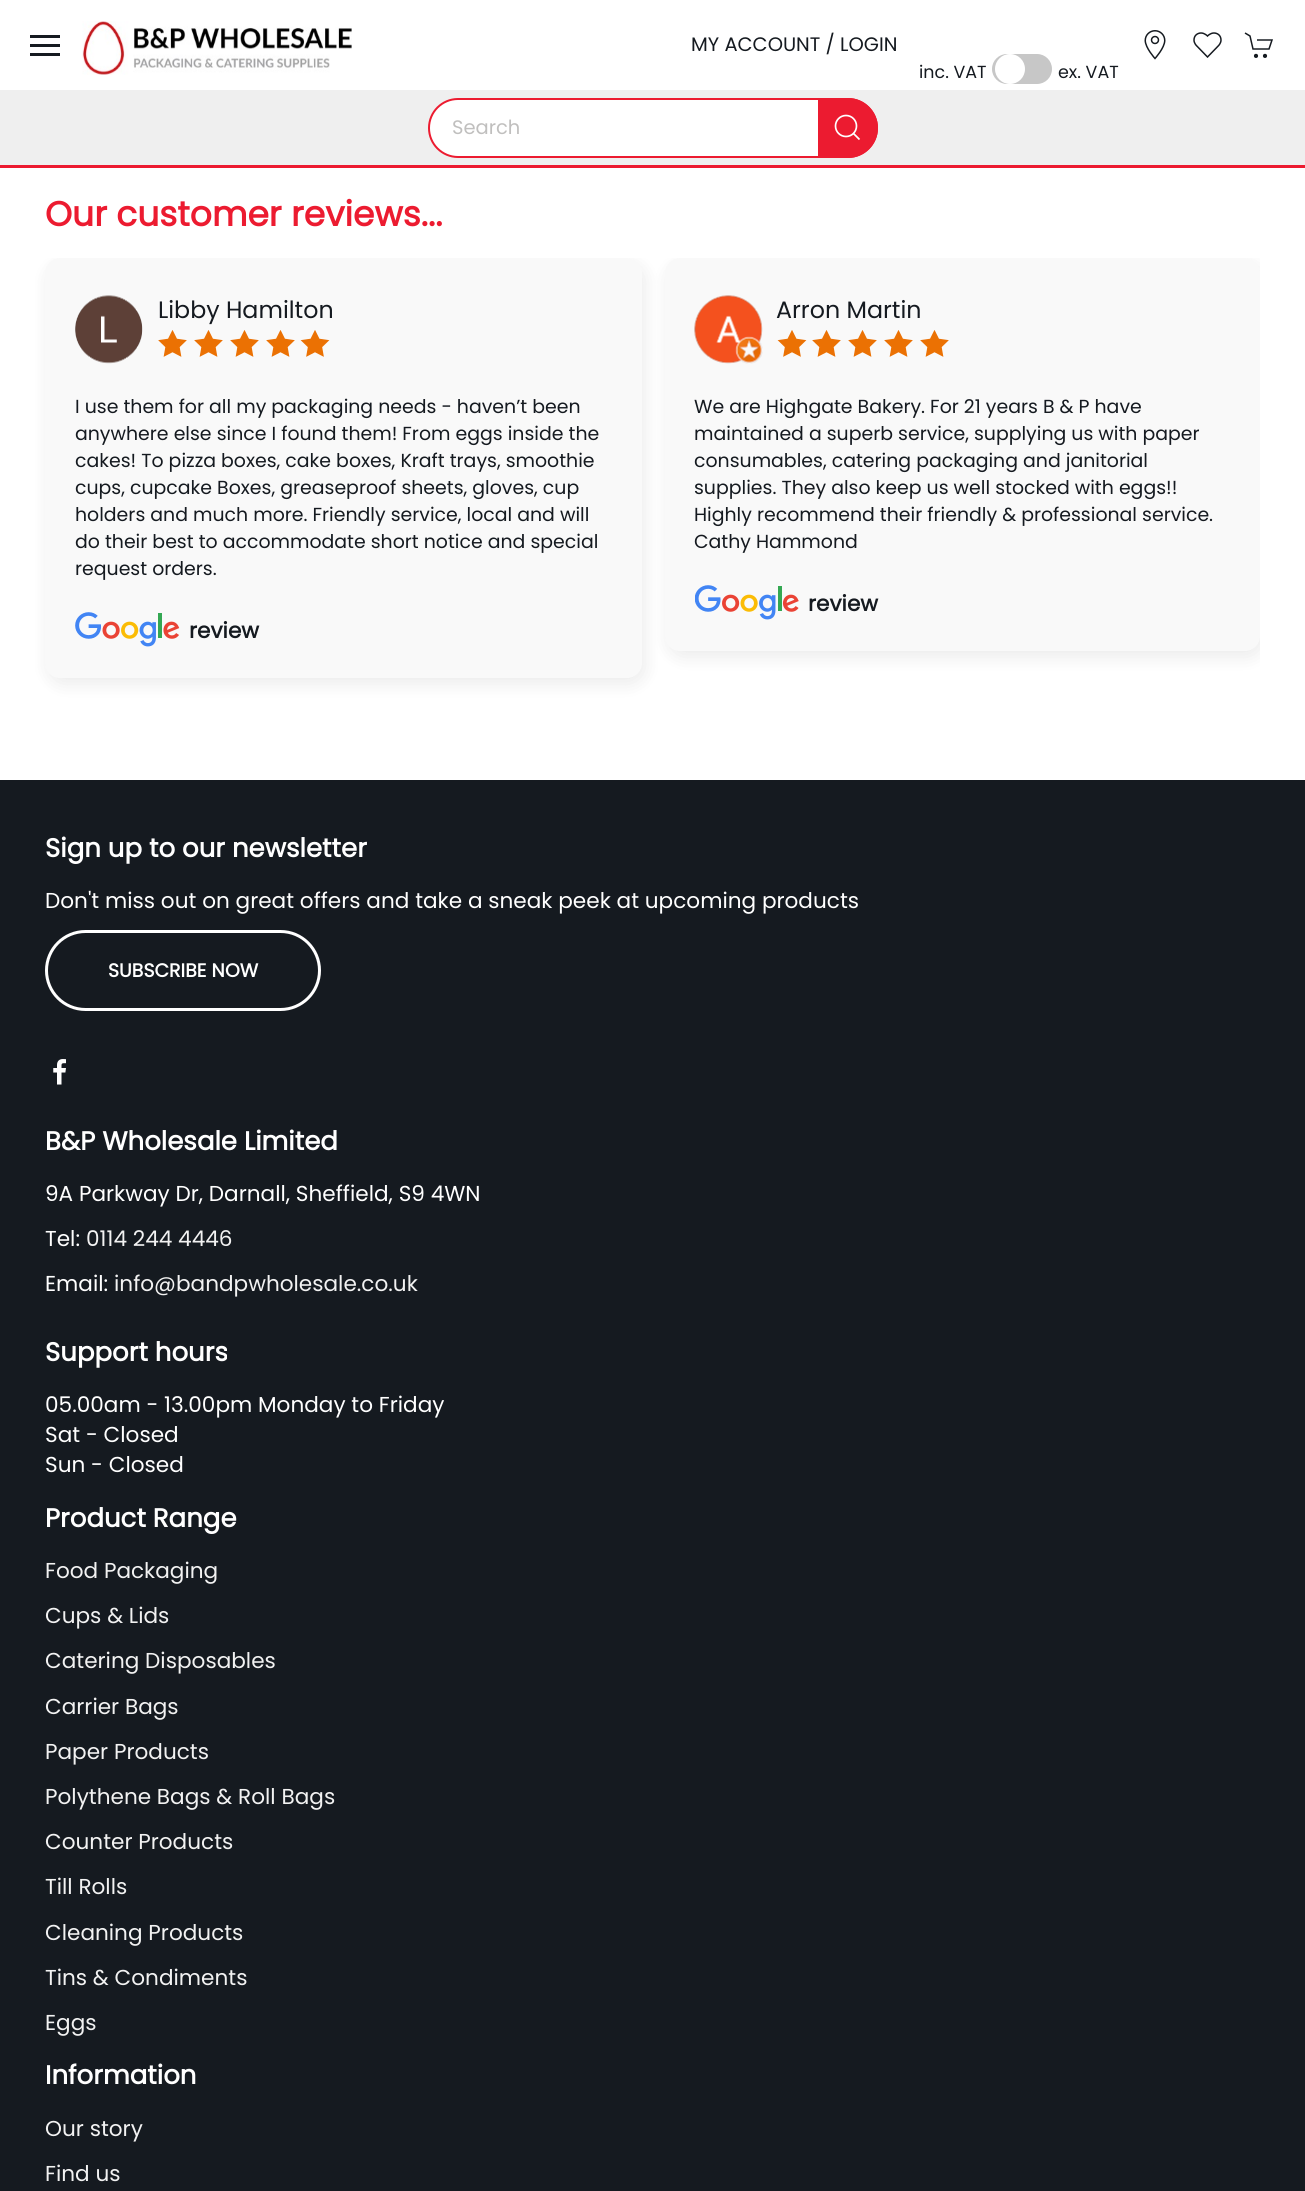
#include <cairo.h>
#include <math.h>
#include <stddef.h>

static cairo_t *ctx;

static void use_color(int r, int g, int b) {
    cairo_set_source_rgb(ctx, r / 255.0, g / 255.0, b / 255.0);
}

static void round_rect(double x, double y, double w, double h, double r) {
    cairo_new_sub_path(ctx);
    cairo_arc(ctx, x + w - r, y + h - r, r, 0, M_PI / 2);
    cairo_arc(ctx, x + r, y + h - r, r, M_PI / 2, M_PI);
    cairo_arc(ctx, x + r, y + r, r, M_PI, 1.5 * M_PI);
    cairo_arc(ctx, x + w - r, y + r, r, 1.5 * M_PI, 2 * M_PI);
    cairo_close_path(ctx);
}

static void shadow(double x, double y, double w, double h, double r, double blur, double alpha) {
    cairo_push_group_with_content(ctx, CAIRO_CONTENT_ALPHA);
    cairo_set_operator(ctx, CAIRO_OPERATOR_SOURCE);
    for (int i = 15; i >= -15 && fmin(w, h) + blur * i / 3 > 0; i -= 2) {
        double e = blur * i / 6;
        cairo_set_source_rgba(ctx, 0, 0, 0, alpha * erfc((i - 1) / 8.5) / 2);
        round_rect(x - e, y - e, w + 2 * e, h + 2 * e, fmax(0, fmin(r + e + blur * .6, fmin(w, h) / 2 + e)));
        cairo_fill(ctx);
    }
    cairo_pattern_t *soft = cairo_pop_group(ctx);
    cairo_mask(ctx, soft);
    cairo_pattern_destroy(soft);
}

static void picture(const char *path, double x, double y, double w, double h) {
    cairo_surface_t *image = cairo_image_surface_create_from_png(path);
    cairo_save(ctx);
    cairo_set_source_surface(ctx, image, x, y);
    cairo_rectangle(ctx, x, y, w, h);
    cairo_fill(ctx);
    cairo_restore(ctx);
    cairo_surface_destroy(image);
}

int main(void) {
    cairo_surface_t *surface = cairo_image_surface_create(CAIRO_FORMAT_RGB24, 1305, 2191);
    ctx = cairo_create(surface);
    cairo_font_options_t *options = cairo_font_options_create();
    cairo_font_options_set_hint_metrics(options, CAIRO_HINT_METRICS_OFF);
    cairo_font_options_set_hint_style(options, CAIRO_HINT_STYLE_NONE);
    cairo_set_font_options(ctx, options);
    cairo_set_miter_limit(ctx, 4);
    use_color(255, 255, 255);
    cairo_paint(ctx);
    use_color(21, 26, 32);
    cairo_rectangle(ctx, 30, 35, 30, 3);
    cairo_fill(ctx);
    cairo_rectangle(ctx, 30, 44, 30, 3);
    cairo_fill(ctx);
    cairo_rectangle(ctx, 30, 53, 30, 3);
    cairo_fill(ctx);
    picture("img1.png", 82, 21, 270, 54);
    cairo_select_font_face(ctx, "Poppins", CAIRO_FONT_SLANT_NORMAL, CAIRO_FONT_WEIGHT_NORMAL);
    cairo_set_font_size(ctx, 19.5);
    cairo_move_to(ctx, 691, 51);
    cairo_show_text(ctx, "MY ACCOUNT / LOGIN");
    picture("img2.png", 1144, 30, 22, 30);
    picture("img3.png", 1193, 32, 29, 26);
    cairo_arc(ctx, 1256, 55.9, 2.1, 0, 2 * M_PI);
    cairo_fill(ctx);
    cairo_arc(ctx, 1265, 55.9, 2.1, 0, 2 * M_PI);
    cairo_fill(ctx);
    cairo_new_path(ctx);
    cairo_move_to(ctx, 1245, 33);
    cairo_line_to(ctx, 1250, 36);
    cairo_line_to(ctx, 1253, 49);
    cairo_line_to(ctx, 1269, 49);
    cairo_line_to(ctx, 1272, 40);
    cairo_line_to(ctx, 1257, 40);
    cairo_set_line_width(ctx, 1.5);
    cairo_stroke(ctx);
    cairo_set_font_size(ctx, 17.5);
    cairo_move_to(ctx, 919, 78);
    cairo_show_text(ctx, "inc. VAT");
    use_color(199, 199, 199);
    round_rect(992, 54, 60, 30, 15);
    cairo_fill(ctx);
    use_color(255, 255, 255);
    cairo_arc(ctx, 1010, 69, 15, 0, 2 * M_PI);
    cairo_fill(ctx);
    use_color(21, 26, 32);
    cairo_move_to(ctx, 1058, 78);
    cairo_show_text(ctx, "ex. VAT");
    use_color(239, 239, 239);
    cairo_rectangle(ctx, 0, 90, 1305, 75);
    cairo_fill(ctx);
    use_color(236, 27, 48);
    cairo_rectangle(ctx, 0, 165, 1305, 3);
    cairo_fill(ctx);
    use_color(255, 255, 255);
    round_rect(429, 99, 448, 58, 29);
    cairo_fill_preserve(ctx);
    use_color(236, 27, 48);
    cairo_set_line_width(ctx, 2);
    cairo_stroke(ctx);
    cairo_set_font_size(ctx, 19.5);
    use_color(192, 191, 190);
    cairo_move_to(ctx, 452, 134);
    cairo_show_text(ctx, "Search");
    use_color(236, 27, 48);
    cairo_new_path(ctx);
    cairo_move_to(ctx, 818, 98);
    cairo_line_to(ctx, 848, 98);
    cairo_curve_to(ctx, 864.5, 98, 878, 111.5, 878, 128);
    cairo_curve_to(ctx, 878, 144.5, 864.5, 158, 848, 158);
    cairo_line_to(ctx, 818, 158);
    cairo_close_path(ctx);
    cairo_fill(ctx);
    cairo_arc(ctx, 846, 126, 10.5, 0, 2 * M_PI);
    use_color(255, 255, 255);
    cairo_set_line_width(ctx, 1.7);
    cairo_stroke(ctx);
    cairo_new_path(ctx);
    cairo_move_to(ctx, 853.5, 133.5);
    cairo_line_to(ctx, 859.5, 139.5);
    cairo_close_path(ctx);
    cairo_stroke(ctx);
    cairo_select_font_face(ctx, "Poppins", CAIRO_FONT_SLANT_NORMAL, CAIRO_FONT_WEIGHT_BOLD);
    cairo_set_font_size(ctx, 34.5);
    use_color(236, 27, 48);
    cairo_move_to(ctx, 45, 226);
    cairo_show_text(ctx, "Our customer reviews...");
    cairo_save(ctx);
    cairo_rectangle(ctx, 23, 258, 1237, 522);
    cairo_clip(ctx);
    use_color(0, 0, 0);
    shadow(48, 264, 597, 420, 15, 9, 0.08);
    cairo_restore(ctx);
    use_color(249, 249, 249);
    round_rect(45, 258, 597, 420, 15);
    cairo_fill(ctx);
    picture("img4.png", 75, 295, 68, 69);
    cairo_select_font_face(ctx, "Poppins", CAIRO_FONT_SLANT_NORMAL, CAIRO_FONT_WEIGHT_NORMAL);
    cairo_set_font_size(ctx, 23.75);
    use_color(21, 26, 32);
    cairo_move_to(ctx, 158, 318);
    cairo_show_text(ctx, "Libby Hamilton");
    picture("img5.png", 158, 330, 29, 27);
    picture("img5.png", 194, 330, 29, 27);
    picture("img5.png", 230, 330, 29, 27);
    picture("img5.png", 266, 330, 29, 27);
    picture("img6.png", 300, 330, 30, 27);
    cairo_set_font_size(ctx, 18.9);
    cairo_move_to(ctx, 75, 413);
    cairo_show_text(ctx, "I use them for all my packaging needs - haven’t been");
    cairo_move_to(ctx, 75, 440);
    cairo_show_text(ctx, "anywhere else since I found them! From eggs inside the");
    cairo_move_to(ctx, 75, 467);
    cairo_show_text(ctx, "cakes! To pizza boxes, cake boxes, Kraft trays, smoothie");
    cairo_move_to(ctx, 75, 494);
    cairo_show_text(ctx, "cups, cupcake Boxes, greaseproof sheets, gloves, cup");
    cairo_move_to(ctx, 75, 521);
    cairo_show_text(ctx, "holders and much more. Friendly service, local and will");
    cairo_move_to(ctx, 75, 548);
    cairo_show_text(ctx, "do their best to accommodate short notice and special");
    cairo_move_to(ctx, 75, 575);
    cairo_show_text(ctx, "request orders.");
    picture("img7.png", 75, 612, 105, 35);
    cairo_select_font_face(ctx, "Poppins", CAIRO_FONT_SLANT_NORMAL, CAIRO_FONT_WEIGHT_BOLD);
    cairo_set_font_size(ctx, 21.6);
    cairo_move_to(ctx, 189, 638);
    cairo_show_text(ctx, "review");
    cairo_save(ctx);
    cairo_rectangle(ctx, 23, 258, 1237, 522);
    cairo_clip(ctx);
    use_color(0, 0, 0);
    shadow(668, 264, 595, 393, 15, 9, 0.08);
    cairo_restore(ctx);
    use_color(249, 249, 249);
    round_rect(665, 258, 595, 393, 15);
    cairo_fill(ctx);
    picture("img8.png", 694, 295, 69, 69);
    cairo_select_font_face(ctx, "Poppins", CAIRO_FONT_SLANT_NORMAL, CAIRO_FONT_WEIGHT_NORMAL);
    cairo_set_font_size(ctx, 23.75);
    use_color(21, 26, 32);
    cairo_move_to(ctx, 776, 318);
    cairo_show_text(ctx, "Arron Martin");
    picture("img6.png", 777, 330, 30, 27);
    picture("img5.png", 812, 330, 29, 27);
    picture("img5.png", 848, 330, 29, 27);
    picture("img5.png", 884, 330, 29, 27);
    picture("img5.png", 920, 330, 29, 27);
    cairo_set_font_size(ctx, 18.9);
    cairo_move_to(ctx, 694, 413);
    cairo_show_text(ctx, "We are Highgate Bakery. For 21 years B & P have");
    cairo_move_to(ctx, 694, 440);
    cairo_show_text(ctx, "maintained a superb service, supplying us with paper");
    cairo_move_to(ctx, 694, 467);
    cairo_show_text(ctx, "consumables, catering packaging and janitorial");
    cairo_move_to(ctx, 694, 494);
    cairo_show_text(ctx, "supplies. They also keep us well stocked with eggs!!");
    cairo_move_to(ctx, 694, 521);
    cairo_show_text(ctx, "Highly recommend their friendly & professional service.");
    cairo_move_to(ctx, 694, 548);
    cairo_show_text(ctx, "Cathy Hammond");
    picture("img9.png", 695, 585, 104, 35);
    cairo_select_font_face(ctx, "Poppins", CAIRO_FONT_SLANT_NORMAL, CAIRO_FONT_WEIGHT_BOLD);
    cairo_set_font_size(ctx, 21.6);
    cairo_move_to(ctx, 808, 611);
    cairo_show_text(ctx, "review");
    cairo_rectangle(ctx, 0, 780, 1305, 1411);
    cairo_fill(ctx);
    cairo_set_font_size(ctx, 26);
    use_color(255, 255, 255);
    cairo_move_to(ctx, 45, 857);
    cairo_show_text(ctx, "Sign up to our newsletter");
    cairo_select_font_face(ctx, "Poppins", CAIRO_FONT_SLANT_NORMAL, CAIRO_FONT_WEIGHT_NORMAL);
    cairo_set_font_size(ctx, 21.6);
    cairo_move_to(ctx, 45, 908);
    cairo_show_text(ctx, "Don't miss out on great offers and take a sneak peek at upcoming products");
    round_rect(46.5, 931.5, 273, 78, 39);
    cairo_set_line_width(ctx, 3);
    cairo_stroke(ctx);
    cairo_select_font_face(ctx, "Poppins", CAIRO_FONT_SLANT_NORMAL, CAIRO_FONT_WEIGHT_BOLD);
    cairo_set_font_size(ctx, 18.9);
    cairo_move_to(ctx, 108, 977);
    cairo_show_text(ctx, "SUBSCRIBE NOW");
    picture("img10.png", 53, 1059, 13, 26);
    cairo_set_font_size(ctx, 26);
    cairo_move_to(ctx, 45, 1150);
    cairo_show_text(ctx, "B&P Wholesale Limited");
    cairo_select_font_face(ctx, "Poppins", CAIRO_FONT_SLANT_NORMAL, CAIRO_FONT_WEIGHT_NORMAL);
    cairo_set_font_size(ctx, 21.6);
    cairo_move_to(ctx, 45, 1201);
    cairo_show_text(ctx, "9A Parkway Dr, Darnall, Sheffield, S9 4WN");
    cairo_move_to(ctx, 45, 1246);
    cairo_show_text(ctx, "Tel:");
    use_color(242, 242, 242);
    cairo_move_to(ctx, 86, 1246);
    cairo_show_text(ctx, "0114 244 4446");
    use_color(255, 255, 255);
    cairo_move_to(ctx, 45, 1291);
    cairo_show_text(ctx, "Email:");
    use_color(242, 242, 242);
    cairo_move_to(ctx, 114, 1291);
    cairo_show_text(ctx, "info@bandpwholesale.co.uk");
    cairo_select_font_face(ctx, "Poppins", CAIRO_FONT_SLANT_NORMAL, CAIRO_FONT_WEIGHT_BOLD);
    cairo_set_font_size(ctx, 26);
    use_color(255, 255, 255);
    cairo_move_to(ctx, 45, 1361);
    cairo_show_text(ctx, "Support hours");
    cairo_select_font_face(ctx, "Poppins", CAIRO_FONT_SLANT_NORMAL, CAIRO_FONT_WEIGHT_NORMAL);
    cairo_set_font_size(ctx, 21.6);
    cairo_move_to(ctx, 45, 1412);
    cairo_show_text(ctx, "05.00am - 13.00pm Monday to Friday");
    cairo_move_to(ctx, 45, 1442);
    cairo_show_text(ctx, "Sat - Closed");
    cairo_move_to(ctx, 45, 1472);
    cairo_show_text(ctx, "Sun - Closed");
    cairo_select_font_face(ctx, "Poppins", CAIRO_FONT_SLANT_NORMAL, CAIRO_FONT_WEIGHT_BOLD);
    cairo_set_font_size(ctx, 26);
    cairo_move_to(ctx, 45, 1527);
    cairo_show_text(ctx, "Product Range");
    cairo_select_font_face(ctx, "Poppins", CAIRO_FONT_SLANT_NORMAL, CAIRO_FONT_WEIGHT_NORMAL);
    cairo_set_font_size(ctx, 21.6);
    use_color(242, 242, 242);
    cairo_move_to(ctx, 45, 1578);
    cairo_show_text(ctx, "Food Packaging");
    cairo_move_to(ctx, 45, 1623);
    cairo_show_text(ctx, "Cups & Lids");
    cairo_move_to(ctx, 45, 1668);
    cairo_show_text(ctx, "Catering Disposables");
    cairo_move_to(ctx, 45, 1714);
    cairo_show_text(ctx, "Carrier Bags");
    cairo_move_to(ctx, 45, 1759);
    cairo_show_text(ctx, "Paper Products");
    cairo_move_to(ctx, 45, 1804);
    cairo_show_text(ctx, "Polythene Bags & Roll Bags");
    cairo_move_to(ctx, 45, 1849);
    cairo_show_text(ctx, "Counter Products");
    cairo_move_to(ctx, 45, 1894);
    cairo_show_text(ctx, "Till Rolls");
    cairo_move_to(ctx, 45, 1940);
    cairo_show_text(ctx, "Cleaning Products");
    cairo_move_to(ctx, 45, 1985);
    cairo_show_text(ctx, "Tins & Condiments");
    cairo_move_to(ctx, 45, 2030);
    cairo_show_text(ctx, "Eggs");
    cairo_select_font_face(ctx, "Poppins", CAIRO_FONT_SLANT_NORMAL, CAIRO_FONT_WEIGHT_BOLD);
    cairo_set_font_size(ctx, 26);
    use_color(255, 255, 255);
    cairo_move_to(ctx, 45, 2084);
    cairo_show_text(ctx, "Information");
    cairo_select_font_face(ctx, "Poppins", CAIRO_FONT_SLANT_NORMAL, CAIRO_FONT_WEIGHT_NORMAL);
    cairo_set_font_size(ctx, 21.6);
    use_color(242, 242, 242);
    cairo_move_to(ctx, 45, 2136);
    cairo_show_text(ctx, "Our story");
    cairo_move_to(ctx, 45, 2181);
    cairo_show_text(ctx, "Find us");
    cairo_surface_write_to_png(surface, "result.png");
    cairo_font_options_destroy(options);
    cairo_destroy(ctx);
    cairo_surface_destroy(surface);
    return 0;
}
